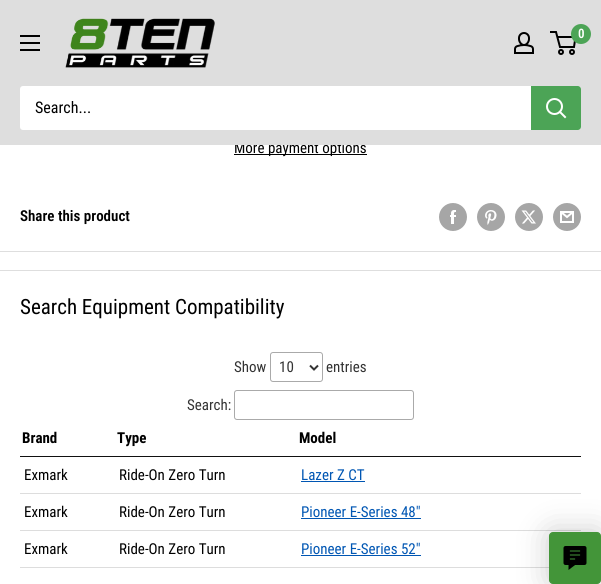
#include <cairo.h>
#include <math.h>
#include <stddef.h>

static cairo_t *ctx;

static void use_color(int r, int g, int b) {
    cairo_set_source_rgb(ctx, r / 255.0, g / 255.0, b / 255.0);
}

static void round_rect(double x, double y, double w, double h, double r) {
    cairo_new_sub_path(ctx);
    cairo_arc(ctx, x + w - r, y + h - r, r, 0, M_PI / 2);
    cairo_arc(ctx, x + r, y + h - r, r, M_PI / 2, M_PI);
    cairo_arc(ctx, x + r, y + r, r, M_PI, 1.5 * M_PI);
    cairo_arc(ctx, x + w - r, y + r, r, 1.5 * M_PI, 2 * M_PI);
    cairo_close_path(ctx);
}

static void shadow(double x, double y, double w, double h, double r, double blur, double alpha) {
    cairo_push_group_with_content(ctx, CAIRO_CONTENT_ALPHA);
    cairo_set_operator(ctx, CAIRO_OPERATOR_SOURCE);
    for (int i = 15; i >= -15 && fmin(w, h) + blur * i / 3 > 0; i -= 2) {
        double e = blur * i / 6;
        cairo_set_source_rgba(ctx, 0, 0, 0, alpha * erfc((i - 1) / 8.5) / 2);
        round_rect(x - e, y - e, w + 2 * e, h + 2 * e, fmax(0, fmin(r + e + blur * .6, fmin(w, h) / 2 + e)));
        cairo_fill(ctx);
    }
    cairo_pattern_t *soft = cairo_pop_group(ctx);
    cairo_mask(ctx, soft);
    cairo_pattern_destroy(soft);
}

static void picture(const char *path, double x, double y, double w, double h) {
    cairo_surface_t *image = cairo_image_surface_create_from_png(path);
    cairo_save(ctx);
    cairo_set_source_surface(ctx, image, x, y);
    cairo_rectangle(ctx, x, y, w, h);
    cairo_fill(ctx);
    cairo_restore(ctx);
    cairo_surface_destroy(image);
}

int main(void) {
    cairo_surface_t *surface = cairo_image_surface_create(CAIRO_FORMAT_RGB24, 601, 584);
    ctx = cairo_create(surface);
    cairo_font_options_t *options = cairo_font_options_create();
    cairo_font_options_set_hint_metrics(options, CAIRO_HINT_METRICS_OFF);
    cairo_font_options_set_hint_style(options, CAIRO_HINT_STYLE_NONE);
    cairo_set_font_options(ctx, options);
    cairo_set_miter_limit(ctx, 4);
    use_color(255, 255, 255);
    cairo_paint(ctx);
    use_color(0, 0, 0);
    cairo_rectangle(ctx, 234, 154, 133, 1);
    cairo_fill(ctx);
    cairo_select_font_face(ctx, "Roboto Condensed", CAIRO_FONT_SLANT_NORMAL, CAIRO_FONT_WEIGHT_NORMAL);
    cairo_set_font_size(ctx, 15);
    cairo_move_to(ctx, 234, 153);
    cairo_show_text(ctx, "More payment options");
    use_color(222, 222, 222);
    cairo_rectangle(ctx, 0, 0, 601, 145);
    cairo_fill(ctx);
    picture("img1.png", 65, 18, 150, 50);
    picture("img2.png", 514, 32, 20, 22);
    cairo_arc(ctx, 561, 52, 2, 0, 2 * M_PI);
    use_color(0, 0, 0);
    cairo_stroke(ctx);
    cairo_arc(ctx, 572, 52, 2, 0, 2 * M_PI);
    cairo_stroke(ctx);
    cairo_new_path(ctx);
    cairo_move_to(ctx, 557.5, 37);
    cairo_line_to(ctx, 575.5, 37);
    cairo_line_to(ctx, 574, 47);
    cairo_line_to(ctx, 560, 47);
    cairo_line_to(ctx, 556, 32);
    cairo_line_to(ctx, 550, 32);
    cairo_stroke(ctx);
    use_color(76, 164, 86);
    cairo_arc(ctx, 581, 34, 10, 0, 2 * M_PI);
    cairo_fill(ctx);
    cairo_select_font_face(ctx, "Roboto Condensed SemiBold", CAIRO_FONT_SLANT_NORMAL, CAIRO_FONT_WEIGHT_NORMAL);
    cairo_set_font_size(ctx, 13);
    use_color(255, 255, 255);
    cairo_move_to(ctx, 578, 38);
    cairo_show_text(ctx, "0");
    picture("img3.png", 20, 35, 20, 16);
    round_rect(20, 86, 561, 44, 3);
    cairo_fill(ctx);
    cairo_select_font_face(ctx, "Roboto Condensed", CAIRO_FONT_SLANT_NORMAL, CAIRO_FONT_WEIGHT_NORMAL);
    cairo_set_font_size(ctx, 16);
    use_color(0, 0, 0);
    cairo_move_to(ctx, 35, 113);
    cairo_show_text(ctx, "Search...");
    use_color(76, 164, 86);
    cairo_new_path(ctx);
    cairo_move_to(ctx, 531, 86);
    cairo_line_to(ctx, 578, 86);
    cairo_curve_to(ctx, 579.5, 86, 581, 87.5, 581, 89);
    cairo_line_to(ctx, 581, 127);
    cairo_curve_to(ctx, 581, 128.5, 579.5, 130, 578, 130);
    cairo_line_to(ctx, 531, 130);
    cairo_close_path(ctx);
    cairo_fill(ctx);
    cairo_new_path(ctx);
    cairo_move_to(ctx, 565, 117);
    cairo_line_to(ctx, 560, 112);
    use_color(255, 255, 255);
    cairo_set_line_cap(ctx, CAIRO_LINE_CAP_SQUARE);
    cairo_stroke(ctx);
    cairo_arc(ctx, 554.5, 106.5, 7.5, 0, 2 * M_PI);
    cairo_set_line_cap(ctx, CAIRO_LINE_CAP_BUTT);
    cairo_stroke(ctx);
    use_color(222, 222, 222);
    cairo_rectangle(ctx, 0, 251, 601, 1);
    cairo_fill(ctx);
    cairo_select_font_face(ctx, "Roboto Condensed SemiBold", CAIRO_FONT_SLANT_NORMAL, CAIRO_FONT_WEIGHT_NORMAL);
    cairo_set_font_size(ctx, 15);
    use_color(0, 0, 0);
    cairo_move_to(ctx, 20, 221);
    cairo_show_text(ctx, "Share this product");
    picture("img4.png", 439, 203, 28, 28);
    picture("img5.png", 477, 203, 28, 28);
    picture("img6.png", 515, 203, 28, 28);
    picture("img7.png", 553, 203, 28, 28);
    use_color(222, 222, 222);
    cairo_rectangle(ctx, 0, 270, 601, 1);
    cairo_fill(ctx);
    cairo_select_font_face(ctx, "Roboto Condensed", CAIRO_FONT_SLANT_NORMAL, CAIRO_FONT_WEIGHT_NORMAL);
    cairo_set_font_size(ctx, 21);
    use_color(0, 0, 0);
    cairo_move_to(ctx, 20, 314);
    cairo_show_text(ctx, "Search Equipment Compatibility");
    cairo_set_font_size(ctx, 15);
    use_color(51, 51, 51);
    cairo_move_to(ctx, 234, 372);
    cairo_show_text(ctx, "Show");
    round_rect(270.5, 352.5, 52, 29, 2.5);
    use_color(170, 170, 170);
    cairo_set_line_width(ctx, 1);
    cairo_stroke(ctx);
    cairo_new_path(ctx);
    cairo_move_to(ctx, 310, 365.5);
    cairo_line_to(ctx, 314, 369.5);
    cairo_line_to(ctx, 318, 365.5);
    use_color(51, 51, 51);
    cairo_set_line_width(ctx, 2);
    cairo_stroke(ctx);
    cairo_move_to(ctx, 279, 372);
    cairo_show_text(ctx, "10");
    cairo_move_to(ctx, 326, 372);
    cairo_show_text(ctx, "entries");
    cairo_move_to(ctx, 187, 410);
    cairo_show_text(ctx, "Search:");
    round_rect(234.5, 390.5, 179, 29, 2.5);
    use_color(170, 170, 170);
    cairo_set_line_width(ctx, 1);
    cairo_stroke(ctx);
    use_color(17, 17, 17);
    cairo_rectangle(ctx, 20, 456, 561, 1);
    cairo_fill(ctx);
    cairo_select_font_face(ctx, "Roboto Condensed", CAIRO_FONT_SLANT_NORMAL, CAIRO_FONT_WEIGHT_BOLD);
    use_color(0, 0, 0);
    cairo_move_to(ctx, 22, 443);
    cairo_show_text(ctx, "Brand");
    cairo_move_to(ctx, 117, 443);
    cairo_show_text(ctx, "Type");
    cairo_move_to(ctx, 299, 443);
    cairo_show_text(ctx, "Model");
    cairo_select_font_face(ctx, "Roboto Condensed", CAIRO_FONT_SLANT_NORMAL, CAIRO_FONT_WEIGHT_NORMAL);
    cairo_move_to(ctx, 24, 480);
    cairo_show_text(ctx, "Exmark");
    cairo_move_to(ctx, 119, 480);
    cairo_show_text(ctx, "Ride-On Zero Turn");
    use_color(0, 86, 179);
    cairo_move_to(ctx, 301, 480);
    cairo_show_text(ctx, "Lazer Z CT");
    cairo_rectangle(ctx, 301, 481, 64, 1);
    cairo_fill(ctx);
    use_color(221, 221, 221);
    cairo_rectangle(ctx, 20, 493, 561, 1);
    cairo_fill(ctx);
    use_color(0, 0, 0);
    cairo_move_to(ctx, 24, 517);
    cairo_show_text(ctx, "Exmark");
    cairo_move_to(ctx, 119, 517);
    cairo_show_text(ctx, "Ride-On Zero Turn");
    use_color(0, 86, 179);
    cairo_move_to(ctx, 301, 517);
    cairo_show_text(ctx, "Pioneer E-Series 48\"");
    cairo_rectangle(ctx, 301, 518, 120, 1);
    cairo_fill(ctx);
    use_color(221, 221, 221);
    cairo_rectangle(ctx, 20, 530, 561, 1);
    cairo_fill(ctx);
    use_color(0, 0, 0);
    cairo_move_to(ctx, 24, 554);
    cairo_show_text(ctx, "Exmark");
    cairo_move_to(ctx, 119, 554);
    cairo_show_text(ctx, "Ride-On Zero Turn");
    use_color(0, 86, 179);
    cairo_move_to(ctx, 301, 554);
    cairo_show_text(ctx, "Pioneer E-Series 52\"");
    cairo_rectangle(ctx, 301, 555, 120, 1);
    cairo_fill(ctx);
    use_color(221, 221, 221);
    cairo_rectangle(ctx, 20, 567, 529, 1);
    cairo_fill(ctx);
    use_color(0, 0, 0);
    shadow(548, 531, 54, 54, 5, 15, 0.2);
    use_color(67, 149, 57);
    round_rect(549.5, 532.5, 51, 51, 3.5);
    cairo_fill_preserve(ctx);
    cairo_stroke(ctx);
    picture("img8.png", 563, 546, 24, 24);
    cairo_surface_write_to_png(surface, "result.png");
    cairo_font_options_destroy(options);
    cairo_destroy(ctx);
    cairo_surface_destroy(surface);
    return 0;
}
